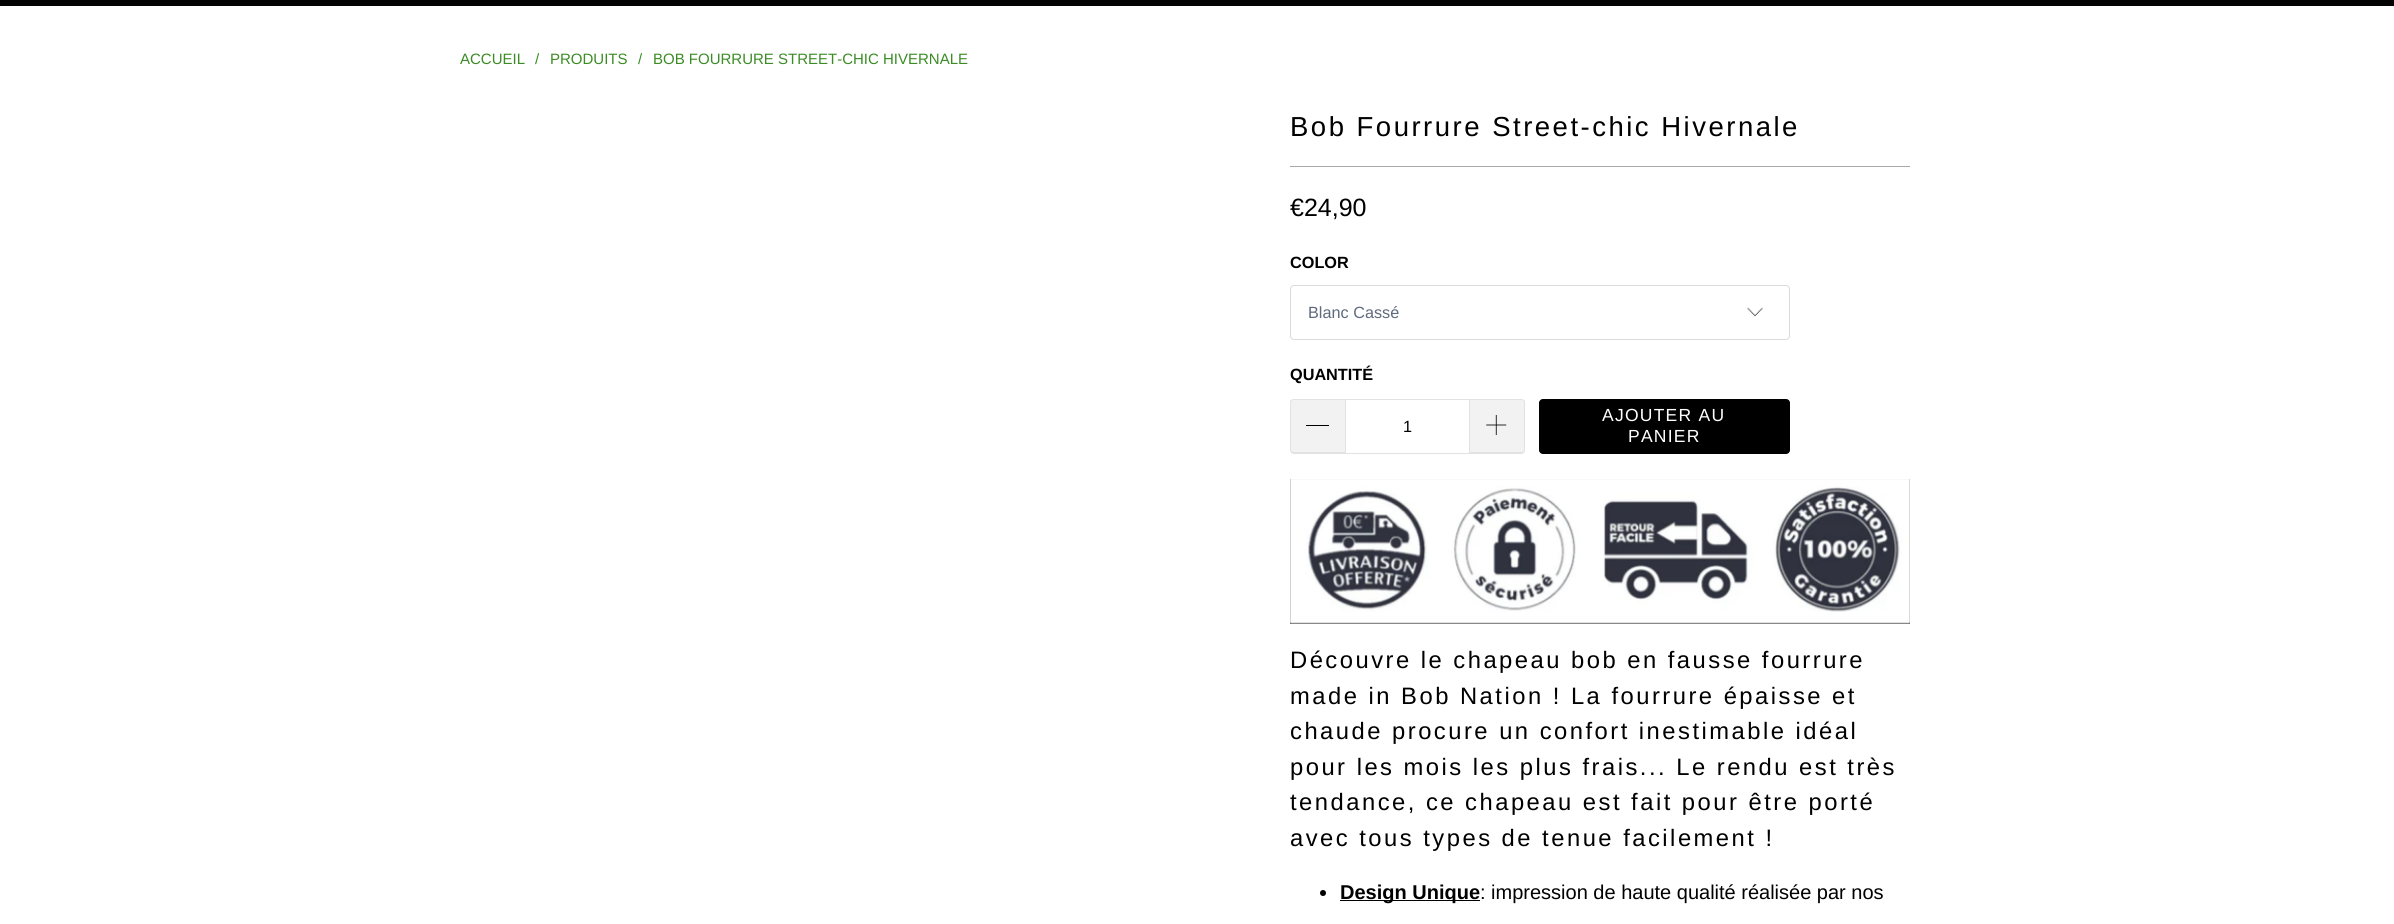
#include <cairo.h>
#include <math.h>
#include <stddef.h>

static cairo_t *ctx;

static void use_color(int r, int g, int b) {
    cairo_set_source_rgb(ctx, r / 255.0, g / 255.0, b / 255.0);
}

static void spaced_text(double x, double y, const char *s, double letter, double word) {
    cairo_move_to(ctx, x, y);
    while (*s) {
        char ch[5] = {0};
        int n = 0;
        do ch[n++] = *s++; while ((*s & 0xC0) == 0x80);
        cairo_show_text(ctx, ch);
        cairo_rel_move_to(ctx, letter + word * (*ch == ' '), 0);
    }
}

static void round_rect(double x, double y, double w, double h, double r) {
    cairo_new_sub_path(ctx);
    cairo_arc(ctx, x + w - r, y + h - r, r, 0, M_PI / 2);
    cairo_arc(ctx, x + r, y + h - r, r, M_PI / 2, M_PI);
    cairo_arc(ctx, x + r, y + r, r, M_PI, 1.5 * M_PI);
    cairo_arc(ctx, x + w - r, y + r, r, 1.5 * M_PI, 2 * M_PI);
    cairo_close_path(ctx);
}

static void picture(const char *path, double x, double y, double w, double h) {
    cairo_surface_t *image = cairo_image_surface_create_from_png(path);
    cairo_save(ctx);
    cairo_set_source_surface(ctx, image, x, y);
    cairo_rectangle(ctx, x, y, w, h);
    cairo_fill(ctx);
    cairo_restore(ctx);
    cairo_surface_destroy(image);
}

int main(void) {
    cairo_surface_t *surface = cairo_image_surface_create(CAIRO_FORMAT_RGB24, 2394, 924);
    ctx = cairo_create(surface);
    cairo_font_options_t *options = cairo_font_options_create();
    cairo_font_options_set_hint_metrics(options, CAIRO_HINT_METRICS_OFF);
    cairo_font_options_set_hint_style(options, CAIRO_HINT_STYLE_NONE);
    cairo_set_font_options(ctx, options);
    cairo_set_miter_limit(ctx, 4);
    use_color(255, 255, 255);
    cairo_paint(ctx);
    use_color(3, 3, 3);
    cairo_rectangle(ctx, 0, 0, 2394, 6);
    cairo_fill(ctx);
    cairo_select_font_face(ctx, "Arimo", CAIRO_FONT_SLANT_NORMAL, CAIRO_FONT_WEIGHT_NORMAL);
    cairo_set_font_size(ctx, 15);
    use_color(59, 140, 37);
    cairo_move_to(ctx, 460, 64);
    cairo_show_text(ctx, "ACCUEIL");
    cairo_move_to(ctx, 535, 64);
    cairo_show_text(ctx, "/");
    cairo_move_to(ctx, 550, 64);
    cairo_show_text(ctx, "PRODUITS");
    cairo_move_to(ctx, 638, 64);
    cairo_show_text(ctx, "/");
    cairo_move_to(ctx, 653, 64);
    cairo_show_text(ctx, "BOB FOURRURE STREET-CHIC HIVERNALE");
    cairo_set_font_size(ctx, 27.5);
    use_color(0, 0, 0);
    spaced_text(1290, 136, "Bob Fourrure Street-chic Hivernale", 2.5, 0);
    use_color(170, 170, 170);
    cairo_rectangle(ctx, 1290, 166, 620, 1);
    cairo_fill(ctx);
    cairo_set_font_size(ctx, 25);
    use_color(0, 0, 0);
    cairo_move_to(ctx, 1290, 216);
    cairo_show_text(ctx, "€24,90");
    cairo_select_font_face(ctx, "Arimo", CAIRO_FONT_SLANT_NORMAL, CAIRO_FONT_WEIGHT_BOLD);
    cairo_set_font_size(ctx, 16.25);
    cairo_move_to(ctx, 1290, 268);
    cairo_show_text(ctx, "COLOR");
    picture("img1.png", 1747, 307, 16, 10);
    round_rect(1290.5, 285.5, 499, 54, 3.5);
    use_color(217, 219, 220);
    cairo_set_line_width(ctx, 1);
    cairo_stroke(ctx);
    cairo_select_font_face(ctx, "Liberation Sans", CAIRO_FONT_SLANT_NORMAL, CAIRO_FONT_WEIGHT_NORMAL);
    use_color(95, 106, 125);
    cairo_move_to(ctx, 1308, 318);
    cairo_show_text(ctx, "Blanc Cassé");
    cairo_select_font_face(ctx, "Arimo", CAIRO_FONT_SLANT_NORMAL, CAIRO_FONT_WEIGHT_BOLD);
    use_color(0, 0, 0);
    cairo_move_to(ctx, 1290, 380);
    cairo_show_text(ctx, "QUANTITÉ");
    use_color(242, 242, 242);
    cairo_new_path(ctx);
    cairo_move_to(ctx, 1294, 399);
    cairo_line_to(ctx, 1345, 399);
    cairo_line_to(ctx, 1345, 454);
    cairo_line_to(ctx, 1294, 454);
    cairo_curve_to(ctx, 1292, 454, 1290, 452, 1290, 450);
    cairo_line_to(ctx, 1290, 403);
    cairo_curve_to(ctx, 1290, 401, 1292, 399, 1294, 399);
    cairo_close_path(ctx);
    cairo_fill(ctx);
    use_color(226, 226, 226);
    cairo_set_fill_rule(ctx, CAIRO_FILL_RULE_EVEN_ODD);
    cairo_new_path(ctx);
    cairo_move_to(ctx, 1294, 399);
    cairo_line_to(ctx, 1345, 399);
    cairo_line_to(ctx, 1345, 454);
    cairo_line_to(ctx, 1294, 454);
    cairo_curve_to(ctx, 1292, 454, 1290, 452, 1290, 450);
    cairo_line_to(ctx, 1290, 402);
    cairo_curve_to(ctx, 1290, 400, 1292, 399, 1294, 399);
    cairo_close_path(ctx);
    cairo_move_to(ctx, 1294, 400);
    cairo_line_to(ctx, 1345, 400);
    cairo_line_to(ctx, 1345, 452);
    cairo_line_to(ctx, 1294, 452);
    cairo_curve_to(ctx, 1292, 452, 1291, 451, 1291, 450);
    cairo_line_to(ctx, 1291, 402);
    cairo_curve_to(ctx, 1291, 401, 1292, 400, 1294, 400);
    cairo_close_path(ctx);
    cairo_fill(ctx);
    use_color(0, 0, 0);
    cairo_rectangle(ctx, 1306, 425, 23, 1);
    cairo_fill(ctx);
    cairo_rectangle(ctx, 1345.5, 399.5, 124, 54);
    use_color(226, 226, 226);
    cairo_stroke(ctx);
    cairo_select_font_face(ctx, "Liberation Sans", CAIRO_FONT_SLANT_NORMAL, CAIRO_FONT_WEIGHT_NORMAL);
    use_color(0, 0, 0);
    cairo_move_to(ctx, 1403, 432);
    cairo_show_text(ctx, "1");
    use_color(242, 242, 242);
    cairo_new_path(ctx);
    cairo_move_to(ctx, 1470, 399);
    cairo_line_to(ctx, 1521, 399);
    cairo_curve_to(ctx, 1523, 399, 1525, 401, 1525, 403);
    cairo_line_to(ctx, 1525, 450);
    cairo_curve_to(ctx, 1525, 452, 1523, 454, 1521, 454);
    cairo_line_to(ctx, 1470, 454);
    cairo_close_path(ctx);
    cairo_fill(ctx);
    use_color(226, 226, 226);
    cairo_new_path(ctx);
    cairo_move_to(ctx, 1470, 399);
    cairo_line_to(ctx, 1521, 399);
    cairo_curve_to(ctx, 1523, 399, 1525, 400, 1525, 402);
    cairo_line_to(ctx, 1525, 450);
    cairo_curve_to(ctx, 1525, 452, 1523, 454, 1521, 454);
    cairo_line_to(ctx, 1470, 454);
    cairo_close_path(ctx);
    cairo_move_to(ctx, 1470, 400);
    cairo_line_to(ctx, 1521, 400);
    cairo_curve_to(ctx, 1523, 400, 1524, 401, 1524, 402);
    cairo_line_to(ctx, 1524, 450);
    cairo_curve_to(ctx, 1524, 451, 1523, 452, 1521, 452);
    cairo_line_to(ctx, 1470, 452);
    cairo_close_path(ctx);
    cairo_fill(ctx);
    picture("img2.png", 1486, 415, 21, 20);
    use_color(0, 0, 0);
    round_rect(1539.5, 399.5, 250, 54, 3.5);
    cairo_fill_preserve(ctx);
    cairo_stroke(ctx);
    cairo_select_font_face(ctx, "Arimo", CAIRO_FONT_SLANT_NORMAL, CAIRO_FONT_WEIGHT_NORMAL);
    cairo_set_font_size(ctx, 17.5);
    use_color(255, 255, 255);
    spaced_text(1602, 421, "AJOUTER AU", 1.25, 0);
    spaced_text(1628, 442, "PANIER", 1.25, 0);
    use_color(0, 0, 0);
    cairo_rectangle(ctx, 1290, 479, 620, 145);
    cairo_fill(ctx);
    picture("img3.png", 1290, 479, 620, 145);
    cairo_set_font_size(ctx, 23.75);
    spaced_text(1290, 668, "Découvre le chapeau bob en fausse fourrure", 2.5, 0);
    spaced_text(1290, 704, "made in Bob Nation ! La fourrure épaisse et", 2.5, 0);
    spaced_text(1290, 739, "chaude procure un confort inestimable idéal", 2.5, 0);
    spaced_text(1290, 775, "pour les mois les plus frais... Le rendu est très", 2.5, 0);
    spaced_text(1290, 810, "tendance, ce chapeau est fait pour être porté", 2.5, 0);
    spaced_text(1290, 846, "avec tous types de tenue facilement !", 2.5, 0);
    cairo_new_path(ctx);
    cairo_arc(ctx, 1323, 893, 3, 0, 2 * M_PI);
    cairo_fill(ctx);
    cairo_rectangle(ctx, 1340, 900, 140, 1);
    cairo_fill(ctx);
    cairo_select_font_face(ctx, "Arimo", CAIRO_FONT_SLANT_NORMAL, CAIRO_FONT_WEIGHT_BOLD);
    cairo_set_font_size(ctx, 20);
    cairo_move_to(ctx, 1340, 899);
    cairo_show_text(ctx, "Design Unique");
    cairo_select_font_face(ctx, "Arimo", CAIRO_FONT_SLANT_NORMAL, CAIRO_FONT_WEIGHT_NORMAL);
    cairo_move_to(ctx, 1480, 899);
    cairo_show_text(ctx, ": impression de haute qualité réalisée par nos");
    cairo_surface_write_to_png(surface, "result.png");
    cairo_font_options_destroy(options);
    cairo_destroy(ctx);
    cairo_surface_destroy(surface);
    return 0;
}
